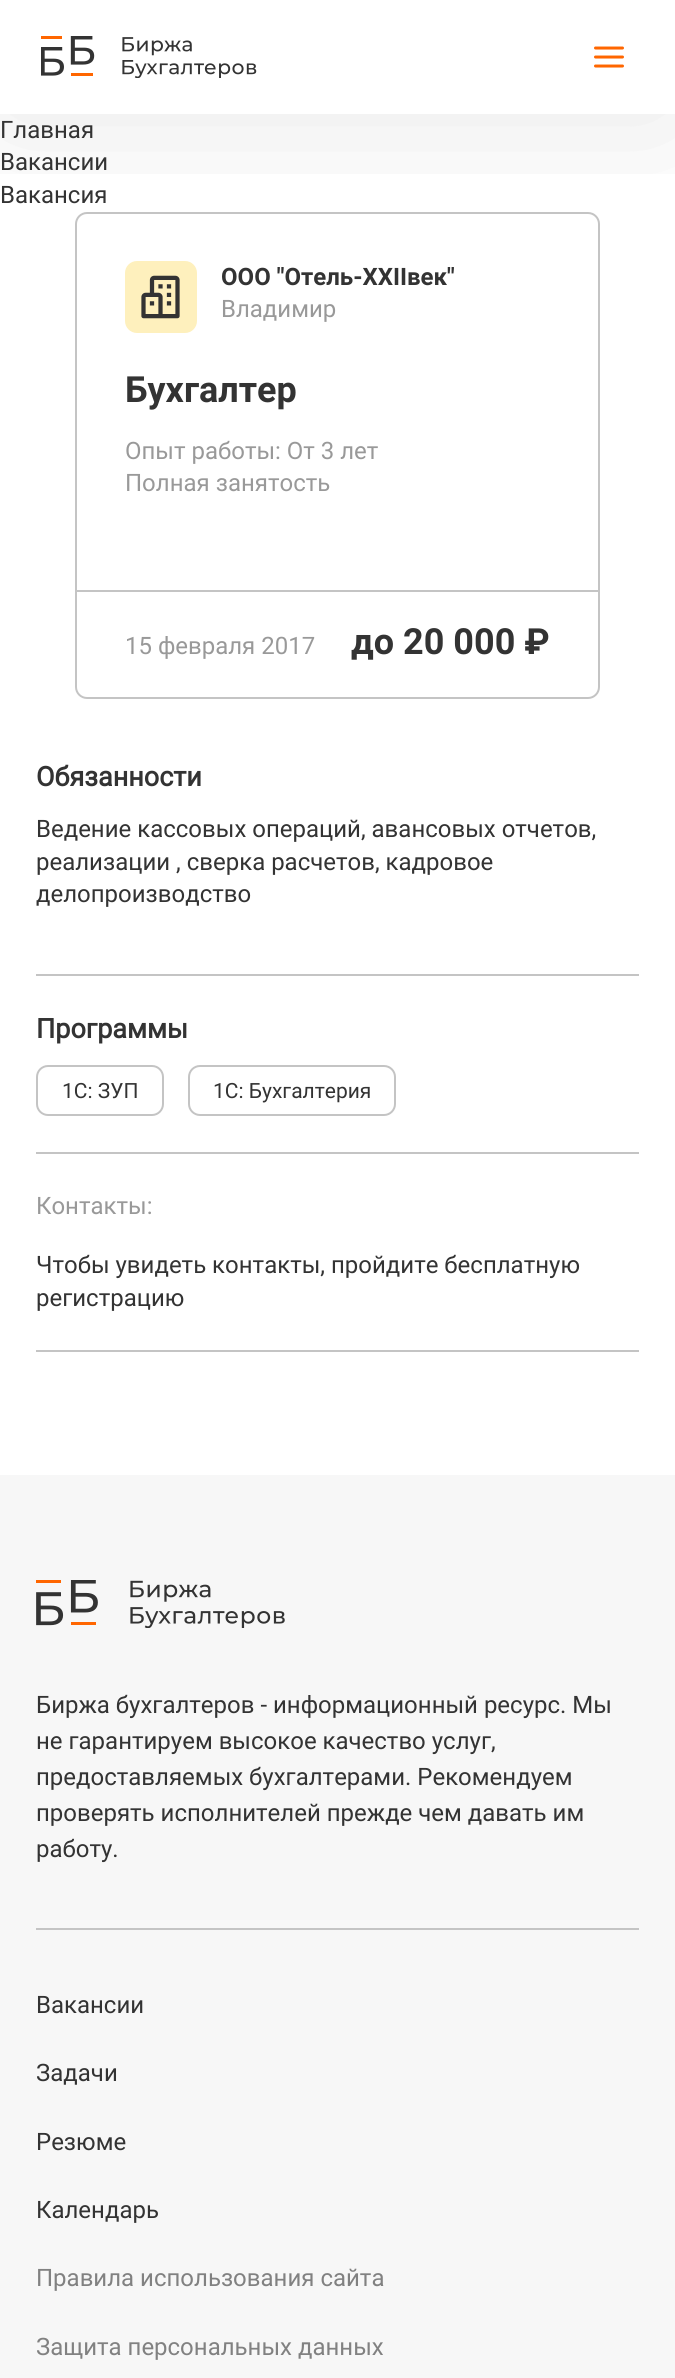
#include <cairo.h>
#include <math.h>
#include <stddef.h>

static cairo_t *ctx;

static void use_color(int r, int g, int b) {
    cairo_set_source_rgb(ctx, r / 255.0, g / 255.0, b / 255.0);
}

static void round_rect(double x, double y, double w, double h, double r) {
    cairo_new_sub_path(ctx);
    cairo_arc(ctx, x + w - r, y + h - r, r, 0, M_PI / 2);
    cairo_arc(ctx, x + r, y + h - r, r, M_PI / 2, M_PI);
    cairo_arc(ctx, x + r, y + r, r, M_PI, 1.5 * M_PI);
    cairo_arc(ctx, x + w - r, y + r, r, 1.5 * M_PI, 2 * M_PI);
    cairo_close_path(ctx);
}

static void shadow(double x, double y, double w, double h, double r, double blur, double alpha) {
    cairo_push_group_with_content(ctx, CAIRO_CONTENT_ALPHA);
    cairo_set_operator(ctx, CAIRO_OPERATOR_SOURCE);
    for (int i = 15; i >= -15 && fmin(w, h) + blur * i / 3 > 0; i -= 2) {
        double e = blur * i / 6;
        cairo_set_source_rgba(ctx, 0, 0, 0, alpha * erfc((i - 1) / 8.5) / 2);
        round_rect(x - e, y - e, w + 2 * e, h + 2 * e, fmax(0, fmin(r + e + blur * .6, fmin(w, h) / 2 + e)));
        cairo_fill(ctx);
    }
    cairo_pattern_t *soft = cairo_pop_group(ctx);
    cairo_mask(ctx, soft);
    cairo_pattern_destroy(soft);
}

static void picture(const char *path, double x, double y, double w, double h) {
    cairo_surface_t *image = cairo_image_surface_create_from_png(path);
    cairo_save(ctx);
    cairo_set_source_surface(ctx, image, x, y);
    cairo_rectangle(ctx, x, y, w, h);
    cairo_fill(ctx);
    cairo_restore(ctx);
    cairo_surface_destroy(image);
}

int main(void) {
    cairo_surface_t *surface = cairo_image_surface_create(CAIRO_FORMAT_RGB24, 675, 2378);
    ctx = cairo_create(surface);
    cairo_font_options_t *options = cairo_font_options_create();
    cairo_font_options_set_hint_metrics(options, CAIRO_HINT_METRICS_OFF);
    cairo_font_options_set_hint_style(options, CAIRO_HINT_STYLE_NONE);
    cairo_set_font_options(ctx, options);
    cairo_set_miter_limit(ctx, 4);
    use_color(255, 255, 255);
    cairo_paint(ctx);
    round_rect(76, 213, 523, 485, 11);
    use_color(196, 196, 196);
    cairo_stroke(ctx);
    use_color(254, 240, 189);
    round_rect(125, 261, 72, 72, 12);
    cairo_fill(ctx);
    picture("img3.png", 141, 275, 39, 44);
    cairo_save(ctx);
    cairo_rectangle(ctx, 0, 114, 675, 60);
    cairo_clip(ctx);
    use_color(0, 0, 0);
    shadow(0, 0, 675, 114, 0, 75, 0.1);
    cairo_restore(ctx);
    picture("img1.png", 41, 36, 216, 42);
    picture("img2.png", 594, 46, 30, 22);
    cairo_select_font_face(ctx, "Roboto", CAIRO_FONT_SLANT_NORMAL, CAIRO_FONT_WEIGHT_NORMAL);
    cairo_set_font_size(ctx, 24);
    use_color(51, 51, 51);
    cairo_move_to(ctx, 0, 138);
    cairo_show_text(ctx, "Главная");
    cairo_move_to(ctx, 0, 170);
    cairo_show_text(ctx, "Вакансии");
    cairo_move_to(ctx, 0, 203);
    cairo_show_text(ctx, "Вакансия");
    cairo_select_font_face(ctx, "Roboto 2", CAIRO_FONT_SLANT_NORMAL, CAIRO_FONT_WEIGHT_BOLD);
    cairo_move_to(ctx, 221, 285);
    cairo_show_text(ctx, "ООО \"Отель-XXIIвек\"");
    cairo_select_font_face(ctx, "Roboto", CAIRO_FONT_SLANT_NORMAL, CAIRO_FONT_WEIGHT_NORMAL);
    use_color(153, 153, 153);
    cairo_move_to(ctx, 221, 317);
    cairo_show_text(ctx, "Владимир");
    cairo_select_font_face(ctx, "Roboto 2", CAIRO_FONT_SLANT_NORMAL, CAIRO_FONT_WEIGHT_BOLD);
    cairo_set_font_size(ctx, 36);
    use_color(51, 51, 51);
    cairo_move_to(ctx, 125, 402);
    cairo_show_text(ctx, "Бухгалтер");
    cairo_select_font_face(ctx, "Roboto", CAIRO_FONT_SLANT_NORMAL, CAIRO_FONT_WEIGHT_NORMAL);
    cairo_set_font_size(ctx, 24);
    use_color(153, 153, 153);
    cairo_move_to(ctx, 125, 459);
    cairo_show_text(ctx, "Опыт работы: От 3 лет");
    cairo_move_to(ctx, 125, 491);
    cairo_show_text(ctx, "Полная занятость");
    use_color(196, 196, 196);
    cairo_rectangle(ctx, 77, 590, 522, 2);
    cairo_fill(ctx);
    use_color(153, 153, 153);
    cairo_move_to(ctx, 125, 654);
    cairo_show_text(ctx, "15 февраля 2017");
    cairo_select_font_face(ctx, "Roboto 2", CAIRO_FONT_SLANT_NORMAL, CAIRO_FONT_WEIGHT_BOLD);
    cairo_set_font_size(ctx, 36);
    use_color(51, 51, 51);
    cairo_move_to(ctx, 351, 654);
    cairo_show_text(ctx, "до 20 000 ₽");
    cairo_select_font_face(ctx, "Roboto", CAIRO_FONT_SLANT_NORMAL, CAIRO_FONT_WEIGHT_BOLD);
    cairo_set_font_size(ctx, 27);
    cairo_move_to(ctx, 36, 786);
    cairo_show_text(ctx, "Обязанности");
    cairo_select_font_face(ctx, "Roboto", CAIRO_FONT_SLANT_NORMAL, CAIRO_FONT_WEIGHT_NORMAL);
    cairo_set_font_size(ctx, 24);
    cairo_move_to(ctx, 36, 837);
    cairo_show_text(ctx, "Ведение кассовых операций, авансовых отчетов,");
    cairo_move_to(ctx, 36, 870);
    cairo_show_text(ctx, "реализации , сверка расчетов, кадровое");
    cairo_move_to(ctx, 36, 902);
    cairo_show_text(ctx, "делопроизводство");
    use_color(196, 196, 196);
    cairo_rectangle(ctx, 36, 974, 603, 2);
    cairo_fill(ctx);
    cairo_select_font_face(ctx, "Roboto", CAIRO_FONT_SLANT_NORMAL, CAIRO_FONT_WEIGHT_BOLD);
    cairo_set_font_size(ctx, 27);
    use_color(51, 51, 51);
    cairo_move_to(ctx, 36, 1038);
    cairo_show_text(ctx, "Программы");
    round_rect(37, 1066, 126, 49, 11);
    use_color(196, 196, 196);
    cairo_stroke(ctx);
    cairo_select_font_face(ctx, "Roboto", CAIRO_FONT_SLANT_NORMAL, CAIRO_FONT_WEIGHT_NORMAL);
    cairo_set_font_size(ctx, 21);
    use_color(51, 51, 51);
    cairo_move_to(ctx, 62, 1098);
    cairo_show_text(ctx, "1С: ЗУП");
    round_rect(189, 1066, 206, 49, 11);
    use_color(196, 196, 196);
    cairo_stroke(ctx);
    use_color(51, 51, 51);
    cairo_move_to(ctx, 213, 1098);
    cairo_show_text(ctx, "1С: Бухгалтерия");
    use_color(196, 196, 196);
    cairo_rectangle(ctx, 36, 1152, 603, 2);
    cairo_fill(ctx);
    cairo_rectangle(ctx, 36, 1350, 603, 2);
    cairo_fill(ctx);
    cairo_set_font_size(ctx, 24);
    use_color(153, 153, 153);
    cairo_move_to(ctx, 36, 1214);
    cairo_show_text(ctx, "Контакты:");
    use_color(51, 51, 51);
    cairo_move_to(ctx, 36, 1273);
    cairo_show_text(ctx, "Чтобы увидеть контакты, пройдите бесплатную");
    cairo_move_to(ctx, 36, 1306);
    cairo_show_text(ctx, "регистрацию");
    use_color(247, 247, 247);
    cairo_rectangle(ctx, 0, 1475, 675, 903);
    cairo_fill(ctx);
    use_color(196, 196, 196);
    cairo_rectangle(ctx, 36, 1928, 603, 2);
    cairo_fill(ctx);
    picture("img4.png", 36, 1580, 249, 48);
    use_color(51, 51, 51);
    cairo_move_to(ctx, 36, 1713);
    cairo_show_text(ctx, "Биржа бухгалтеров - информационный ресурс. Мы");
    cairo_move_to(ctx, 36, 1749);
    cairo_show_text(ctx, "не гарантируем высокое качество услуг,");
    cairo_move_to(ctx, 36, 1785);
    cairo_show_text(ctx, "предоставляемых бухгалтерами. Рекомендуем");
    cairo_move_to(ctx, 36, 1821);
    cairo_show_text(ctx, "проверять исполнителей прежде чем давать им");
    cairo_move_to(ctx, 36, 1857);
    cairo_show_text(ctx, "работу.");
    cairo_move_to(ctx, 36, 2013);
    cairo_show_text(ctx, "Вакансии");
    cairo_move_to(ctx, 36, 2081);
    cairo_show_text(ctx, "Задачи");
    cairo_move_to(ctx, 36, 2150);
    cairo_show_text(ctx, "Резюме");
    cairo_move_to(ctx, 36, 2218);
    cairo_show_text(ctx, "Календарь");
    use_color(129, 129, 129);
    cairo_move_to(ctx, 36, 2286);
    cairo_show_text(ctx, "Правила использования сайта");
    cairo_move_to(ctx, 36, 2355);
    cairo_show_text(ctx, "Защита персональных данных");
    cairo_surface_write_to_png(surface, "result.png");
    cairo_font_options_destroy(options);
    cairo_destroy(ctx);
    cairo_surface_destroy(surface);
    return 0;
}
